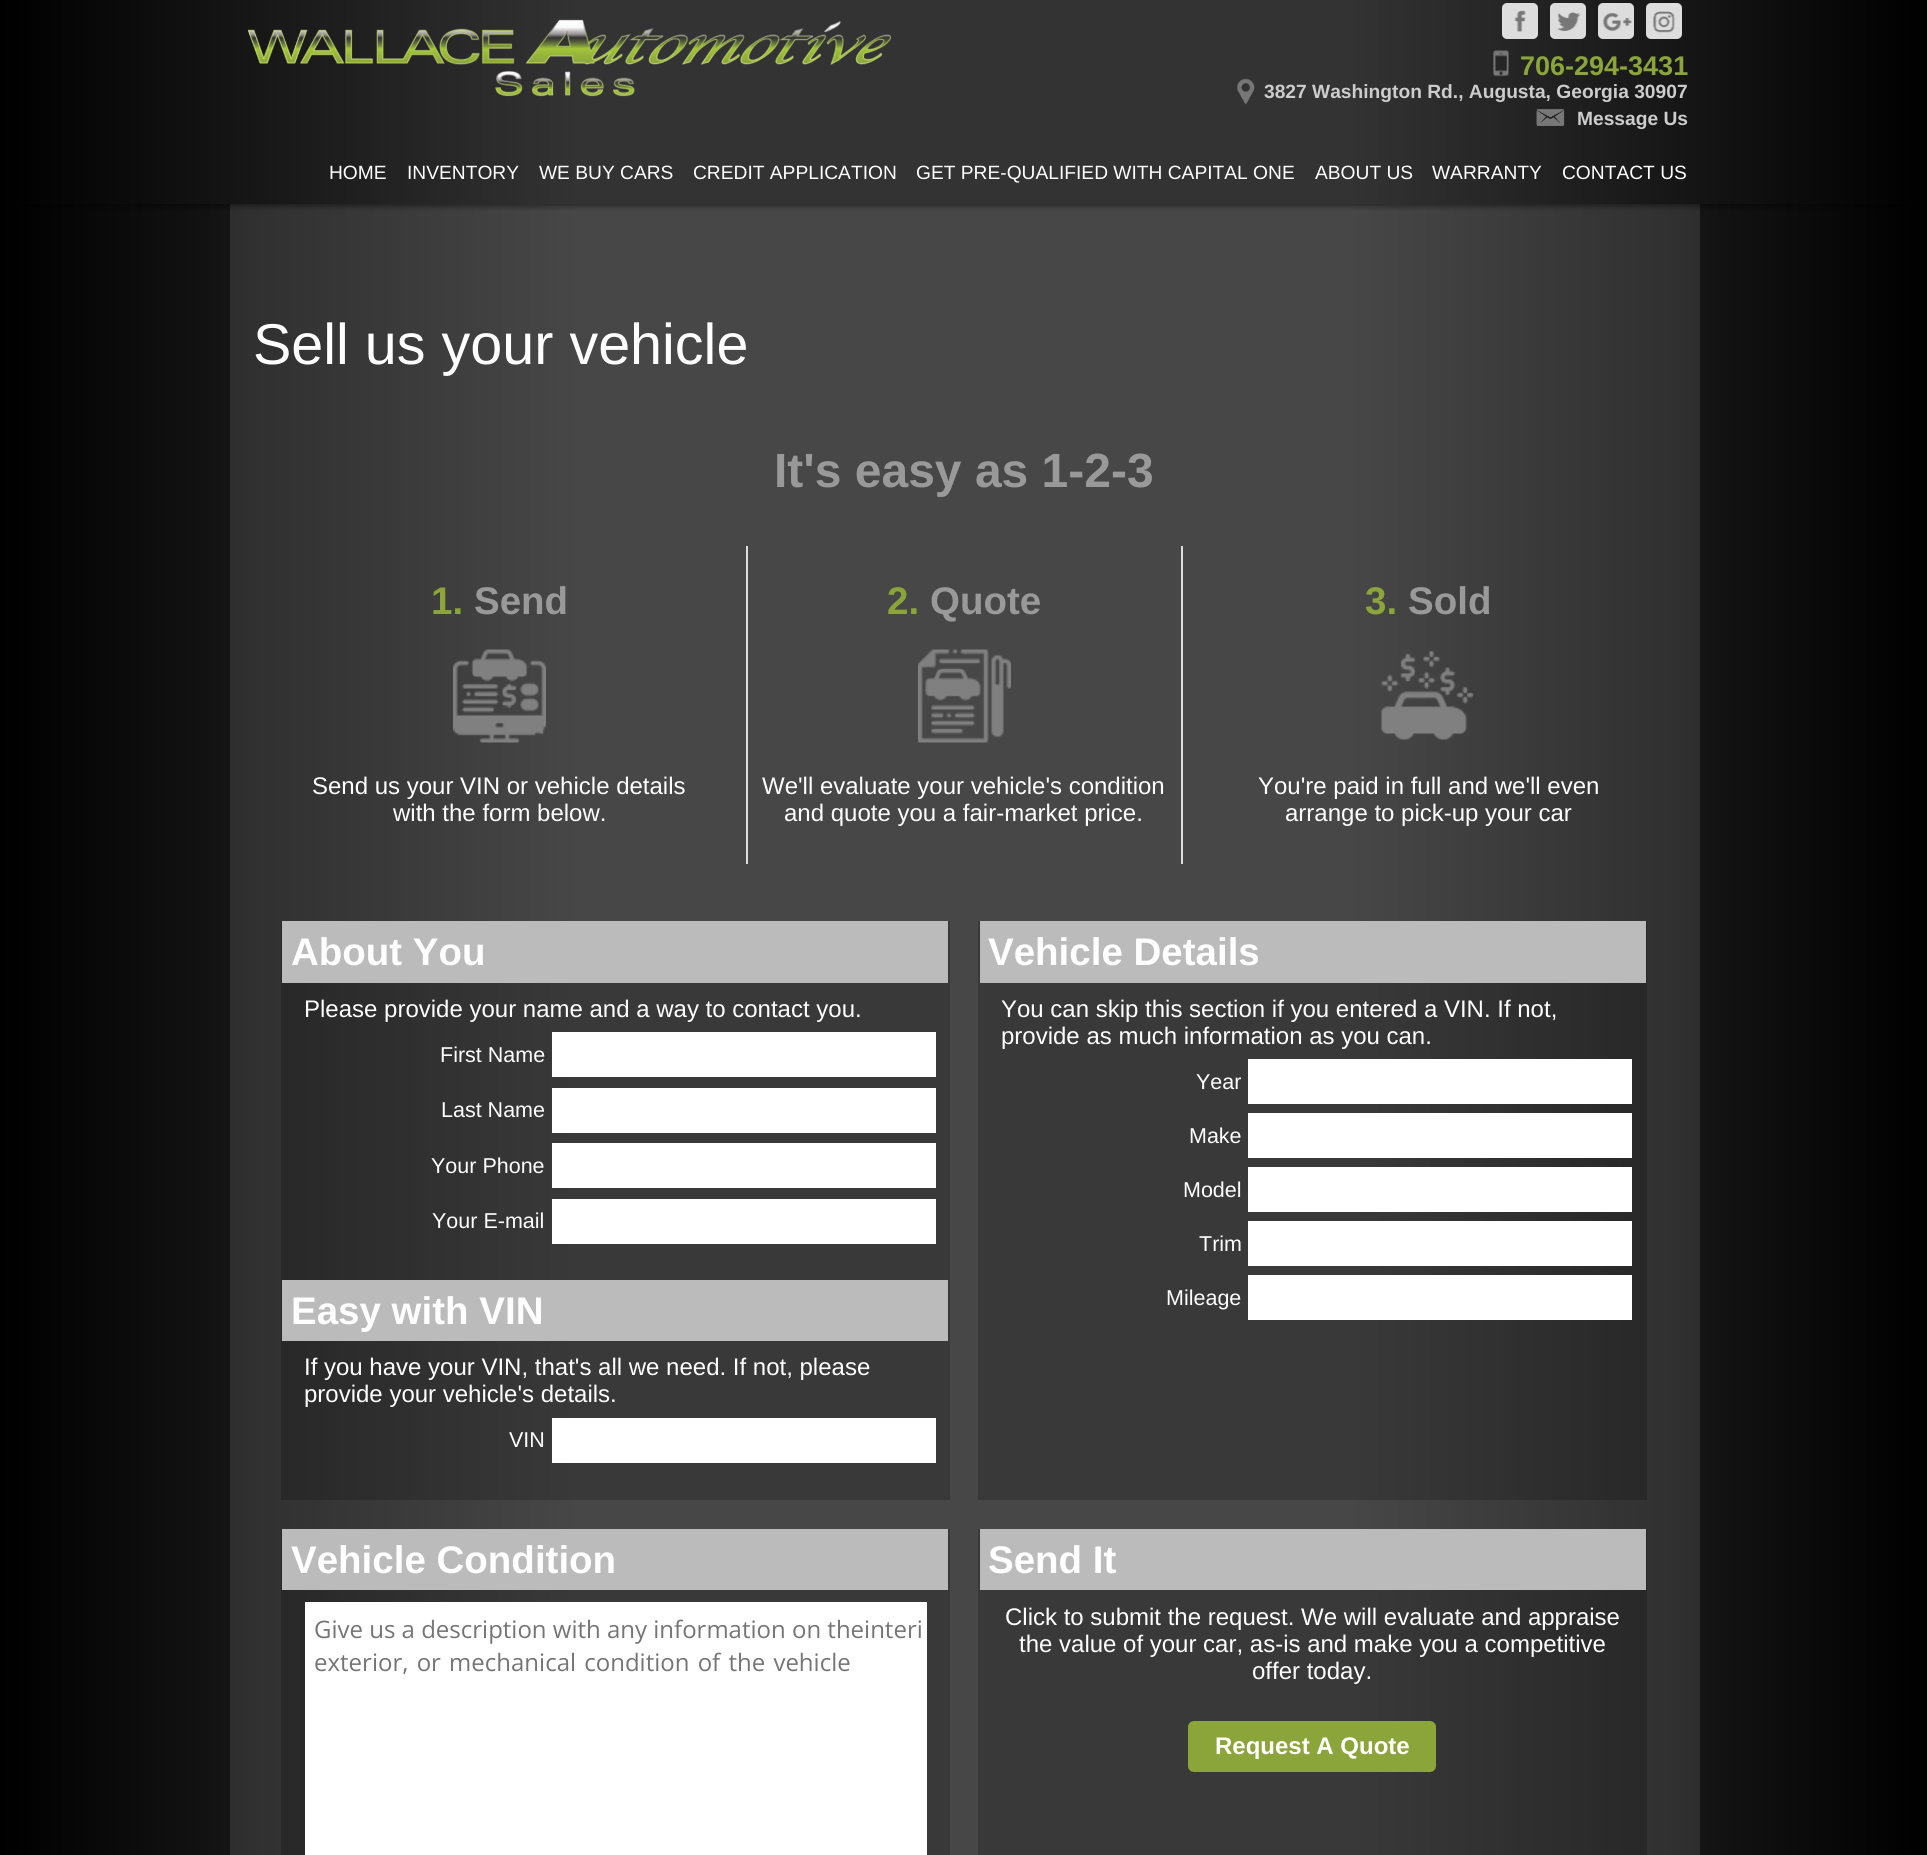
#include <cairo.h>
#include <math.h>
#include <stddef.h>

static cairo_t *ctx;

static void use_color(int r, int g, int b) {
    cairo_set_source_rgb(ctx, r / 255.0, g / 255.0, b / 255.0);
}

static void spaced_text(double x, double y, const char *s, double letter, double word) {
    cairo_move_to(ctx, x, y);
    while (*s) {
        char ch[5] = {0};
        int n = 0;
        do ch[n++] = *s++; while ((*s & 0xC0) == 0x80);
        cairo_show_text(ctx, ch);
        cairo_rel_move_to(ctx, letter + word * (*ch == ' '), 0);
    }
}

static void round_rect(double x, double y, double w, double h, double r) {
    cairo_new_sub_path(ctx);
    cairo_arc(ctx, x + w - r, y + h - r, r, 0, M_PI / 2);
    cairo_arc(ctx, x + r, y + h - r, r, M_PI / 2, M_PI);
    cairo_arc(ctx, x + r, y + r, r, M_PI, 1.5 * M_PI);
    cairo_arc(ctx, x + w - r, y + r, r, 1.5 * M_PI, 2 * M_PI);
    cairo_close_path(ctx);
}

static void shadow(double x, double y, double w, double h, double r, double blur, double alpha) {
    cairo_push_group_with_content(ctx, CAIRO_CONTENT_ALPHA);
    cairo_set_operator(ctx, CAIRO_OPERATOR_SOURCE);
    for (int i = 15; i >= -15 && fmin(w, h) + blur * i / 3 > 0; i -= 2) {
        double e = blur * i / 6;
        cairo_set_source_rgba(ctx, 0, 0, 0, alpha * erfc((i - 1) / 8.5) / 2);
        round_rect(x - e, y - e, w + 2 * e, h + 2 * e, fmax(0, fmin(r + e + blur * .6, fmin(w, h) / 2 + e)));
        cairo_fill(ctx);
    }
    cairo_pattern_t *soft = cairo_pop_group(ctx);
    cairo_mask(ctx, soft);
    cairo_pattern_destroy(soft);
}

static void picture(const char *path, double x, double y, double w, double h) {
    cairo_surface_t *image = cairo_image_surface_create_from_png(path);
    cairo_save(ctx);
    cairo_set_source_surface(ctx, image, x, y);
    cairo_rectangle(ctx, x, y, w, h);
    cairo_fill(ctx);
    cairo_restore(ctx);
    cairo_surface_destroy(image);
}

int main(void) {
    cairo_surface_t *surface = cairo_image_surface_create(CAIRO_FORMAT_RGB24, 1927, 1855);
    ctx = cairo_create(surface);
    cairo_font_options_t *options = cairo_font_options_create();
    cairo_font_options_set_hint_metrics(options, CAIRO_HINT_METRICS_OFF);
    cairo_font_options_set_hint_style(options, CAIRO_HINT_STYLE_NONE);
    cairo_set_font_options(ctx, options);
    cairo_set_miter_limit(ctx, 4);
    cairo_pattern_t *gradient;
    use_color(255, 255, 255);
    cairo_paint(ctx);
    gradient = cairo_pattern_create_linear(0, 1695, 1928, 1695);
    cairo_pattern_add_color_stop_rgba(gradient, 0, 0, 0, 0, 1);
    cairo_pattern_add_color_stop_rgba(gradient, 0.3, 0.2, 0.2, 0.2, 1);
    cairo_pattern_add_color_stop_rgba(gradient, 0.7, 0.2, 0.2, 0.2, 1);
    cairo_pattern_add_color_stop_rgba(gradient, 1, 0, 0, 0, 1);
    cairo_set_source(ctx, gradient);
    cairo_pattern_destroy(gradient);
    cairo_rectangle(ctx, 0, 0, 1927, 1855);
    cairo_fill(ctx);
    gradient = cairo_pattern_create_linear(0, 1695, 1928, 1695);
    cairo_pattern_add_color_stop_rgba(gradient, 0, 0.118, 0.118, 0.118, 1);
    cairo_pattern_add_color_stop_rgba(gradient, 0.3, 0.278, 0.278, 0.278, 1);
    cairo_pattern_add_color_stop_rgba(gradient, 0.7, 0.278, 0.278, 0.278, 1);
    cairo_pattern_add_color_stop_rgba(gradient, 1, 0.118, 0.118, 0.118, 1);
    cairo_set_source(ctx, gradient);
    cairo_pattern_destroy(gradient);
    cairo_rectangle(ctx, 230, 204, 1470, 1651);
    cairo_fill(ctx);
    gradient = cairo_pattern_create_linear(0, 1695, 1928, 1695);
    cairo_pattern_add_color_stop_rgba(gradient, 0, 0.094, 0.094, 0.094, 1);
    cairo_pattern_add_color_stop_rgba(gradient, 0.3, 0.224, 0.224, 0.224, 1);
    cairo_pattern_add_color_stop_rgba(gradient, 0.7, 0.224, 0.224, 0.224, 1);
    cairo_pattern_add_color_stop_rgba(gradient, 1, 0.094, 0.094, 0.094, 1);
    cairo_set_source(ctx, gradient);
    cairo_pattern_destroy(gradient);
    cairo_rectangle(ctx, 978, 1529, 669, 326);
    cairo_fill(ctx);
    cairo_rectangle(ctx, 281, 1529, 669, 326);
    cairo_fill(ctx);
    cairo_rectangle(ctx, 978, 921, 669, 579);
    cairo_fill(ctx);
    cairo_rectangle(ctx, 281, 921, 669, 579);
    cairo_fill(ctx);
    cairo_save(ctx);
    cairo_rectangle(ctx, 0, 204, 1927, 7);
    cairo_clip(ctx);
    use_color(0, 0, 0);
    shadow(2, 2, 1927, 204, 0, 3, 0.5);
    cairo_restore(ctx);
    picture("img1.png", 248, 19, 643, 78);
    use_color(221, 221, 221);
    round_rect(1502, 3, 36, 36, 5);
    cairo_fill(ctx);
    picture("img2.png", 1514, 10, 12, 22);
    round_rect(1550, 3, 36, 36, 5);
    cairo_fill(ctx);
    picture("img3.png", 1557, 12, 24, 20);
    round_rect(1598, 3, 36, 36, 5);
    cairo_fill(ctx);
    picture("img4.png", 1603, 12, 29, 19);
    round_rect(1646, 3, 36, 36, 5);
    cairo_fill(ctx);
    picture("img5.png", 1653, 11, 22, 22);
    picture("img6.png", 1493, 50, 16, 27);
    cairo_select_font_face(ctx, "Liberation Sans", CAIRO_FONT_SLANT_NORMAL, CAIRO_FONT_WEIGHT_BOLD);
    cairo_set_font_size(ctx, 27);
    use_color(139, 165, 59);
    cairo_move_to(ctx, 1520, 75);
    cairo_show_text(ctx, "706-294-3431");
    picture("img7.png", 1237, 78, 18, 27);
    cairo_set_font_size(ctx, 19.2);
    use_color(204, 204, 204);
    cairo_move_to(ctx, 1264, 98);
    cairo_show_text(ctx, "3827 Washington Rd., Augusta, Georgia 30907");
    picture("img8.png", 1536, 109, 29, 17);
    cairo_move_to(ctx, 1577, 125);
    cairo_show_text(ctx, "Message Us");
    cairo_select_font_face(ctx, "Liberation Sans", CAIRO_FONT_SLANT_NORMAL, CAIRO_FONT_WEIGHT_NORMAL);
    use_color(254, 254, 254);
    cairo_move_to(ctx, 329, 179);
    cairo_show_text(ctx, "HOME");
    cairo_move_to(ctx, 407, 179);
    cairo_show_text(ctx, "INVENTORY");
    cairo_move_to(ctx, 539, 179);
    cairo_show_text(ctx, "WE BUY CARS");
    cairo_move_to(ctx, 693, 179);
    cairo_show_text(ctx, "CREDIT APPLICATION");
    cairo_move_to(ctx, 916, 179);
    cairo_show_text(ctx, "GET PRE-QUALIFIED WITH CAPITAL ONE");
    cairo_move_to(ctx, 1315, 179);
    cairo_show_text(ctx, "ABOUT US");
    cairo_move_to(ctx, 1432, 179);
    cairo_show_text(ctx, "WARRANTY");
    cairo_move_to(ctx, 1562, 179);
    cairo_show_text(ctx, "CONTACT US");
    cairo_set_font_size(ctx, 57.5);
    cairo_move_to(ctx, 253, 364);
    cairo_show_text(ctx, "Sell us your vehicle");
    cairo_select_font_face(ctx, "Liberation Sans", CAIRO_FONT_SLANT_NORMAL, CAIRO_FONT_WEIGHT_BOLD);
    cairo_set_font_size(ctx, 48);
    use_color(153, 153, 153);
    cairo_move_to(ctx, 774, 487);
    cairo_show_text(ctx, "It's easy as 1-2-3");
    cairo_set_font_size(ctx, 38.5);
    use_color(139, 165, 59);
    cairo_move_to(ctx, 431, 614);
    cairo_show_text(ctx, "1.");
    use_color(153, 153, 153);
    cairo_move_to(ctx, 474, 614);
    cairo_show_text(ctx, "Send");
    picture("img9.png", 453, 649, 93, 94);
    cairo_select_font_face(ctx, "Liberation Sans", CAIRO_FONT_SLANT_NORMAL, CAIRO_FONT_WEIGHT_NORMAL);
    cairo_set_font_size(ctx, 24);
    use_color(254, 254, 254);
    cairo_move_to(ctx, 312, 794);
    cairo_show_text(ctx, "Send us your VIN or vehicle details");
    cairo_move_to(ctx, 393, 821);
    cairo_show_text(ctx, "with the form below.");
    use_color(221, 221, 221);
    cairo_rectangle(ctx, 1181, 546, 2, 318);
    cairo_fill(ctx);
    cairo_rectangle(ctx, 746, 546, 2, 318);
    cairo_fill(ctx);
    cairo_select_font_face(ctx, "Liberation Sans", CAIRO_FONT_SLANT_NORMAL, CAIRO_FONT_WEIGHT_BOLD);
    cairo_set_font_size(ctx, 38.5);
    use_color(139, 165, 59);
    cairo_move_to(ctx, 887, 614);
    cairo_show_text(ctx, "2.");
    use_color(153, 153, 153);
    cairo_move_to(ctx, 930, 614);
    cairo_show_text(ctx, "Quote");
    picture("img10.png", 918, 649, 93, 94);
    cairo_select_font_face(ctx, "Liberation Sans", CAIRO_FONT_SLANT_NORMAL, CAIRO_FONT_WEIGHT_NORMAL);
    cairo_set_font_size(ctx, 24);
    use_color(254, 254, 254);
    cairo_move_to(ctx, 762, 794);
    cairo_show_text(ctx, "We'll evaluate your vehicle's condition");
    cairo_move_to(ctx, 784, 821);
    cairo_show_text(ctx, "and quote you a fair-market price.");
    cairo_select_font_face(ctx, "Liberation Sans", CAIRO_FONT_SLANT_NORMAL, CAIRO_FONT_WEIGHT_BOLD);
    cairo_set_font_size(ctx, 38.5);
    use_color(139, 165, 59);
    cairo_move_to(ctx, 1365, 614);
    cairo_show_text(ctx, "3.");
    use_color(153, 153, 153);
    cairo_move_to(ctx, 1408, 614);
    cairo_show_text(ctx, "Sold");
    picture("img11.png", 1381, 650, 93, 90);
    cairo_select_font_face(ctx, "Liberation Sans", CAIRO_FONT_SLANT_NORMAL, CAIRO_FONT_WEIGHT_NORMAL);
    cairo_set_font_size(ctx, 24);
    use_color(254, 254, 254);
    cairo_move_to(ctx, 1258, 794);
    cairo_show_text(ctx, "You're paid in full and we'll even");
    cairo_move_to(ctx, 1285, 821);
    cairo_show_text(ctx, "arrange to pick-up your car");
    use_color(187, 187, 187);
    cairo_rectangle(ctx, 282, 921, 666, 62);
    cairo_fill(ctx);
    cairo_select_font_face(ctx, "Liberation Sans", CAIRO_FONT_SLANT_NORMAL, CAIRO_FONT_WEIGHT_BOLD);
    cairo_set_font_size(ctx, 38.5);
    use_color(254, 254, 254);
    cairo_move_to(ctx, 291, 965);
    cairo_show_text(ctx, "About You");
    cairo_select_font_face(ctx, "Liberation Sans", CAIRO_FONT_SLANT_NORMAL, CAIRO_FONT_WEIGHT_NORMAL);
    cairo_set_font_size(ctx, 24);
    cairo_move_to(ctx, 304, 1017);
    cairo_show_text(ctx, "Please provide your name and a way to contact you.");
    cairo_set_font_size(ctx, 21.5);
    cairo_move_to(ctx, 440, 1062);
    cairo_show_text(ctx, "First Name");
    use_color(255, 255, 255);
    cairo_rectangle(ctx, 552, 1032, 384, 45);
    cairo_fill(ctx);
    use_color(254, 254, 254);
    cairo_move_to(ctx, 441, 1117);
    cairo_show_text(ctx, "Last Name");
    use_color(255, 255, 255);
    cairo_rectangle(ctx, 552, 1088, 384, 45);
    cairo_fill(ctx);
    use_color(254, 254, 254);
    cairo_move_to(ctx, 431, 1173);
    cairo_show_text(ctx, "Your Phone");
    use_color(255, 255, 255);
    cairo_rectangle(ctx, 552, 1143, 384, 45);
    cairo_fill(ctx);
    use_color(254, 254, 254);
    cairo_move_to(ctx, 432, 1228);
    cairo_show_text(ctx, "Your E-mail");
    use_color(255, 255, 255);
    cairo_rectangle(ctx, 552, 1199, 384, 45);
    cairo_fill(ctx);
    use_color(187, 187, 187);
    cairo_rectangle(ctx, 282, 1280, 666, 61);
    cairo_fill(ctx);
    cairo_select_font_face(ctx, "Liberation Sans", CAIRO_FONT_SLANT_NORMAL, CAIRO_FONT_WEIGHT_BOLD);
    cairo_set_font_size(ctx, 38.5);
    use_color(254, 254, 254);
    cairo_move_to(ctx, 291, 1324);
    cairo_show_text(ctx, "Easy with VIN");
    cairo_select_font_face(ctx, "Liberation Sans", CAIRO_FONT_SLANT_NORMAL, CAIRO_FONT_WEIGHT_NORMAL);
    cairo_set_font_size(ctx, 24);
    cairo_move_to(ctx, 304, 1375);
    cairo_show_text(ctx, "If you have your VIN, that's all we need. If not, please");
    cairo_move_to(ctx, 304, 1402);
    cairo_show_text(ctx, "provide your vehicle's details.");
    cairo_set_font_size(ctx, 21.5);
    cairo_move_to(ctx, 509, 1447);
    cairo_show_text(ctx, "VIN");
    use_color(255, 255, 255);
    cairo_rectangle(ctx, 552, 1418, 384, 45);
    cairo_fill(ctx);
    use_color(187, 187, 187);
    cairo_rectangle(ctx, 980, 921, 666, 62);
    cairo_fill(ctx);
    cairo_select_font_face(ctx, "Liberation Sans", CAIRO_FONT_SLANT_NORMAL, CAIRO_FONT_WEIGHT_BOLD);
    cairo_set_font_size(ctx, 38.5);
    use_color(254, 254, 254);
    cairo_move_to(ctx, 988, 965);
    cairo_show_text(ctx, "Vehicle Details");
    cairo_select_font_face(ctx, "Liberation Sans", CAIRO_FONT_SLANT_NORMAL, CAIRO_FONT_WEIGHT_NORMAL);
    cairo_set_font_size(ctx, 24);
    cairo_move_to(ctx, 1001, 1017);
    cairo_show_text(ctx, "You can skip this section if you entered a VIN. If not,");
    cairo_move_to(ctx, 1001, 1044);
    cairo_show_text(ctx, "provide as much information as you can.");
    cairo_set_font_size(ctx, 21.5);
    cairo_move_to(ctx, 1196, 1089);
    cairo_show_text(ctx, "Year");
    use_color(255, 255, 255);
    cairo_rectangle(ctx, 1248, 1059, 384, 45);
    cairo_fill(ctx);
    use_color(254, 254, 254);
    cairo_move_to(ctx, 1189, 1143);
    cairo_show_text(ctx, "Make");
    use_color(255, 255, 255);
    cairo_rectangle(ctx, 1248, 1113, 384, 45);
    cairo_fill(ctx);
    use_color(254, 254, 254);
    cairo_move_to(ctx, 1183, 1197);
    cairo_show_text(ctx, "Model");
    use_color(255, 255, 255);
    cairo_rectangle(ctx, 1248, 1167, 384, 45);
    cairo_fill(ctx);
    use_color(254, 254, 254);
    cairo_move_to(ctx, 1199, 1251);
    cairo_show_text(ctx, "Trim");
    use_color(255, 255, 255);
    cairo_rectangle(ctx, 1248, 1221, 384, 45);
    cairo_fill(ctx);
    use_color(254, 254, 254);
    cairo_move_to(ctx, 1166, 1305);
    cairo_show_text(ctx, "Mileage");
    use_color(255, 255, 255);
    cairo_rectangle(ctx, 1248, 1275, 384, 45);
    cairo_fill(ctx);
    use_color(187, 187, 187);
    cairo_rectangle(ctx, 282, 1529, 666, 61);
    cairo_fill(ctx);
    cairo_select_font_face(ctx, "Liberation Sans", CAIRO_FONT_SLANT_NORMAL, CAIRO_FONT_WEIGHT_BOLD);
    cairo_set_font_size(ctx, 38.5);
    use_color(254, 254, 254);
    cairo_move_to(ctx, 291, 1573);
    cairo_show_text(ctx, "Vehicle Condition");
    use_color(255, 255, 255);
    cairo_rectangle(ctx, 305, 1602, 622, 253);
    cairo_fill(ctx);
    cairo_select_font_face(ctx, "Open Sans", CAIRO_FONT_SLANT_NORMAL, CAIRO_FONT_WEIGHT_NORMAL);
    cairo_set_font_size(ctx, 24);
    use_color(117, 117, 117);
    cairo_move_to(ctx, 314, 1638);
    cairo_show_text(ctx, "Give us a description with any information on theinteri");
    spaced_text(314, 1671, "exterior, or mechanical condition of the vehicle", 0, 2);
    use_color(187, 187, 187);
    cairo_rectangle(ctx, 980, 1529, 666, 61);
    cairo_fill(ctx);
    cairo_select_font_face(ctx, "Liberation Sans", CAIRO_FONT_SLANT_NORMAL, CAIRO_FONT_WEIGHT_BOLD);
    cairo_set_font_size(ctx, 38.5);
    use_color(254, 254, 254);
    cairo_move_to(ctx, 988, 1573);
    cairo_show_text(ctx, "Send It");
    cairo_select_font_face(ctx, "Liberation Sans", CAIRO_FONT_SLANT_NORMAL, CAIRO_FONT_WEIGHT_NORMAL);
    cairo_set_font_size(ctx, 24);
    cairo_move_to(ctx, 1005, 1625);
    cairo_show_text(ctx, "Click to submit the request. We will evaluate and appraise");
    cairo_move_to(ctx, 1019, 1652);
    cairo_show_text(ctx, "the value of your car, as-is and make you a competitive");
    cairo_move_to(ctx, 1252, 1679);
    cairo_show_text(ctx, "offer today.");
    use_color(139, 165, 59);
    round_rect(1188, 1721, 248, 51, 6);
    cairo_fill(ctx);
    cairo_select_font_face(ctx, "Liberation Sans", CAIRO_FONT_SLANT_NORMAL, CAIRO_FONT_WEIGHT_BOLD);
    use_color(254, 254, 254);
    cairo_move_to(ctx, 1215, 1754);
    cairo_show_text(ctx, "Request A Quote");
    cairo_surface_write_to_png(surface, "result.png");
    cairo_font_options_destroy(options);
    cairo_destroy(ctx);
    cairo_surface_destroy(surface);
    return 0;
}
